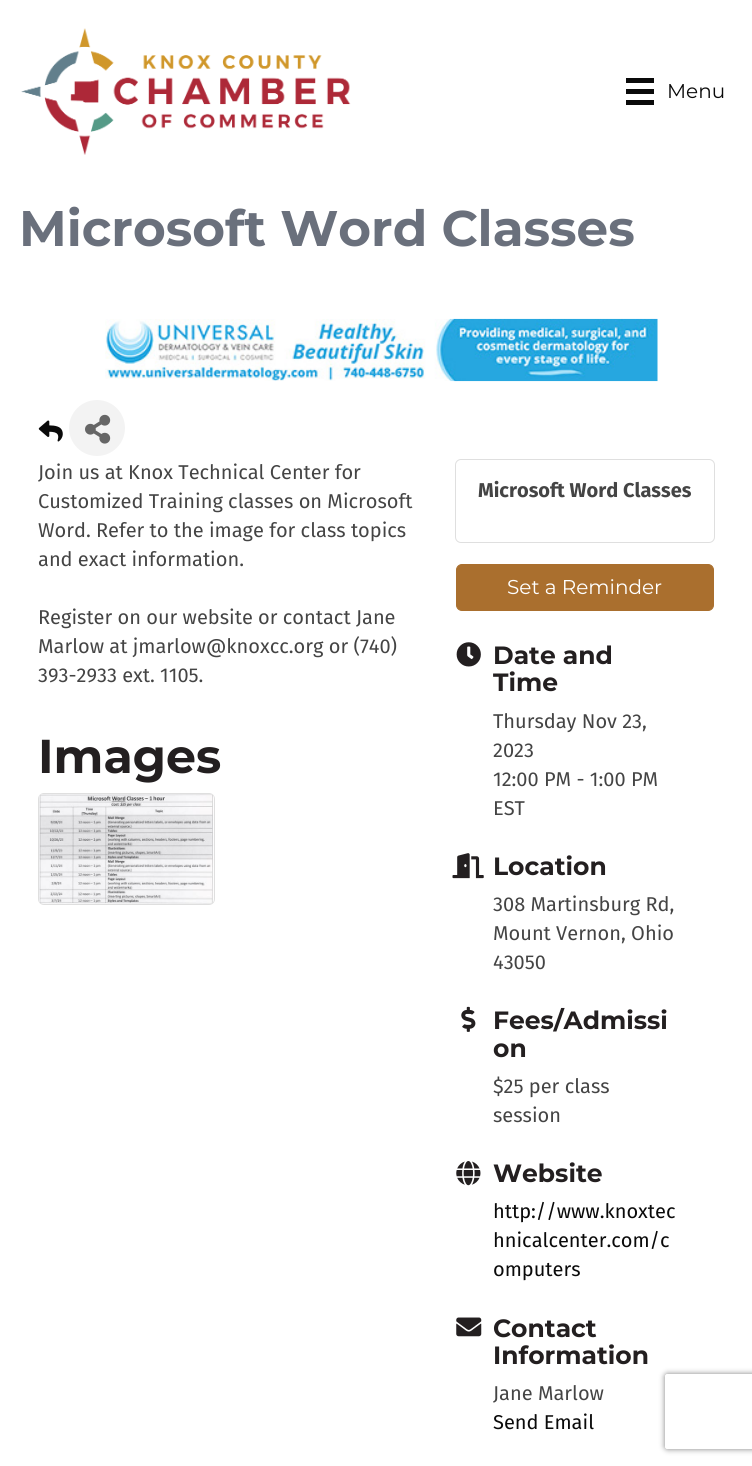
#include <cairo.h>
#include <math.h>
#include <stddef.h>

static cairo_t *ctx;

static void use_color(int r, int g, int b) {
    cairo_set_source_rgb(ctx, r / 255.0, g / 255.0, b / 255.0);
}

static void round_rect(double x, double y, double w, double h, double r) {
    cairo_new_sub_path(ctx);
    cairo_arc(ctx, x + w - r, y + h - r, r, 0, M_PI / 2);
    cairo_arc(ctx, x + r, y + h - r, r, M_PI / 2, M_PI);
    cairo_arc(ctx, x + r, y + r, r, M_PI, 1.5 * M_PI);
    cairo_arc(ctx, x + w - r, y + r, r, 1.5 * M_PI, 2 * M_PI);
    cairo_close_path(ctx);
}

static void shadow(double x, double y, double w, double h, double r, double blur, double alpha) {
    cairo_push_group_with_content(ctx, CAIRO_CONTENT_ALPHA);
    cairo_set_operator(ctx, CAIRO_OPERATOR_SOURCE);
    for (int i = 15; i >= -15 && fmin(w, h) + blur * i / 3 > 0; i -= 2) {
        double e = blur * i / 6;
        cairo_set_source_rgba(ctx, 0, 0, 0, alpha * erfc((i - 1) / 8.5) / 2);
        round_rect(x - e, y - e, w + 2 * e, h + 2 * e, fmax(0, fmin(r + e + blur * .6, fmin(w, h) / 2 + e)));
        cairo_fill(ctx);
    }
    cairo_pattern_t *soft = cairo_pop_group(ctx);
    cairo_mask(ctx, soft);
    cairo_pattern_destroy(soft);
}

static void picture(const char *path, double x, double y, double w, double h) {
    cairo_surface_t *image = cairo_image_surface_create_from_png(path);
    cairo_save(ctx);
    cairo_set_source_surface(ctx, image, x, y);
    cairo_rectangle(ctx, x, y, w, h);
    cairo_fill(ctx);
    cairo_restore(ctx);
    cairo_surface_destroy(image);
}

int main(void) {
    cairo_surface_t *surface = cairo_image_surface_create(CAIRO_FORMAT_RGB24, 752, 1466);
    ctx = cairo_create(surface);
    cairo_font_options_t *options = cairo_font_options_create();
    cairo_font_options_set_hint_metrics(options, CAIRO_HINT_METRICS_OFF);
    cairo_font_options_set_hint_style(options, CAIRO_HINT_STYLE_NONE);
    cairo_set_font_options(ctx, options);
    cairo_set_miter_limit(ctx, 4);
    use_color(255, 255, 255);
    cairo_paint(ctx);
    picture("img1.png", 21, 28, 330, 127);
    use_color(10, 10, 10);
    cairo_rectangle(ctx, 626, 78, 28, 5);
    cairo_fill(ctx);
    cairo_rectangle(ctx, 626, 89, 28, 5);
    cairo_fill(ctx);
    cairo_rectangle(ctx, 626, 100, 28, 5);
    cairo_fill(ctx);
    cairo_select_font_face(ctx, "Montserrat", CAIRO_FONT_SLANT_NORMAL, CAIRO_FONT_WEIGHT_NORMAL);
    cairo_set_font_size(ctx, 20);
    cairo_move_to(ctx, 667, 98);
    cairo_show_text(ctx, "Menu");
    cairo_select_font_face(ctx, "Montserrat", CAIRO_FONT_SLANT_NORMAL, CAIRO_FONT_WEIGHT_BOLD);
    cairo_set_font_size(ctx, 50);
    use_color(106, 112, 124);
    cairo_move_to(ctx, 19, 246);
    cairo_show_text(ctx, "Microsoft Word Classes");
    picture("img2.png", 105, 318, 553, 64);
    picture("img3.png", 38, 420, 25, 22);
    use_color(243, 243, 243);
    cairo_arc(ctx, 97, 428, 28, 0, 2 * M_PI);
    cairo_fill(ctx);
    picture("img4.png", 85, 414, 26, 30);
    cairo_select_font_face(ctx, "Fira Sans", CAIRO_FONT_SLANT_NORMAL, CAIRO_FONT_WEIGHT_NORMAL);
    cairo_set_font_size(ctx, 20);
    use_color(68, 68, 68);
    cairo_move_to(ctx, 38, 479);
    cairo_show_text(ctx, "Join us at Knox Technical Center for");
    cairo_move_to(ctx, 38, 508);
    cairo_show_text(ctx, "Customized Training classes on Microsoft");
    cairo_move_to(ctx, 38, 537);
    cairo_show_text(ctx, "Word. Refer to the image for class topics");
    cairo_move_to(ctx, 38, 566);
    cairo_show_text(ctx, "and exact information.");
    cairo_move_to(ctx, 38, 624);
    cairo_show_text(ctx, "Register on our website or contact Jane");
    cairo_move_to(ctx, 38, 653);
    cairo_show_text(ctx, "Marlow at jmarlow@knoxcc.org or (740)");
    cairo_move_to(ctx, 38, 682);
    cairo_show_text(ctx, "393-2933 ext. 1105.");
    cairo_select_font_face(ctx, "Montserrat", CAIRO_FONT_SLANT_NORMAL, CAIRO_FONT_WEIGHT_BOLD);
    cairo_set_font_size(ctx, 47.5);
    use_color(35, 31, 32);
    cairo_move_to(ctx, 38, 773);
    cairo_show_text(ctx, "Images");
    round_rect(38.5, 793.5, 176, 111, 5.5);
    use_color(223, 223, 223);
    cairo_set_line_width(ctx, 1);
    cairo_stroke(ctx);
    picture("img5.png", 39, 794, 175, 110);
    round_rect(455.5, 459.5, 259, 83, 5.5);
    cairo_stroke(ctx);
    cairo_select_font_face(ctx, "Fira Sans", CAIRO_FONT_SLANT_NORMAL, CAIRO_FONT_WEIGHT_BOLD);
    cairo_set_font_size(ctx, 20);
    use_color(68, 68, 68);
    cairo_move_to(ctx, 478, 497);
    cairo_show_text(ctx, "Microsoft Word Classes");
    use_color(170, 111, 46);
    round_rect(456.5, 564.5, 257, 46, 5.5);
    cairo_fill_preserve(ctx);
    cairo_stroke(ctx);
    cairo_select_font_face(ctx, "Montserrat", CAIRO_FONT_SLANT_NORMAL, CAIRO_FONT_WEIGHT_NORMAL);
    use_color(255, 255, 255);
    cairo_move_to(ctx, 507, 594);
    cairo_show_text(ctx, "Set a Reminder");
    picture("img6.png", 456, 642, 25, 25);
    cairo_select_font_face(ctx, "Montserrat", CAIRO_FONT_SLANT_NORMAL, CAIRO_FONT_WEIGHT_BOLD);
    cairo_set_font_size(ctx, 25);
    use_color(35, 31, 32);
    cairo_move_to(ctx, 493, 664);
    cairo_show_text(ctx, "Date and");
    cairo_move_to(ctx, 493, 691);
    cairo_show_text(ctx, "Time");
    cairo_select_font_face(ctx, "Fira Sans", CAIRO_FONT_SLANT_NORMAL, CAIRO_FONT_WEIGHT_NORMAL);
    cairo_set_font_size(ctx, 20);
    use_color(68, 68, 68);
    cairo_move_to(ctx, 493, 728);
    cairo_show_text(ctx, "Thursday Nov 23,");
    cairo_move_to(ctx, 493, 757);
    cairo_show_text(ctx, "2023");
    cairo_move_to(ctx, 493, 786);
    cairo_show_text(ctx, "12:00 PM - 1:00 PM");
    cairo_move_to(ctx, 493, 815);
    cairo_show_text(ctx, "EST");
    picture("img7.png", 452, 853, 32, 26);
    cairo_select_font_face(ctx, "Montserrat", CAIRO_FONT_SLANT_NORMAL, CAIRO_FONT_WEIGHT_BOLD);
    cairo_set_font_size(ctx, 25);
    use_color(35, 31, 32);
    cairo_move_to(ctx, 493, 875);
    cairo_show_text(ctx, "Location");
    cairo_select_font_face(ctx, "Fira Sans", CAIRO_FONT_SLANT_NORMAL, CAIRO_FONT_WEIGHT_NORMAL);
    cairo_set_font_size(ctx, 20);
    use_color(68, 68, 68);
    cairo_move_to(ctx, 493, 911);
    cairo_show_text(ctx, "308 Martinsburg Rd,");
    cairo_move_to(ctx, 493, 940);
    cairo_show_text(ctx, "Mount Vernon, Ohio");
    cairo_move_to(ctx, 493, 969);
    cairo_show_text(ctx, "43050");
    picture("img8.png", 461, 1006, 15, 26);
    cairo_select_font_face(ctx, "Montserrat", CAIRO_FONT_SLANT_NORMAL, CAIRO_FONT_WEIGHT_BOLD);
    cairo_set_font_size(ctx, 25);
    use_color(35, 31, 32);
    cairo_move_to(ctx, 493, 1029);
    cairo_show_text(ctx, "Fees/Admissi");
    cairo_move_to(ctx, 493, 1057);
    cairo_show_text(ctx, "on");
    cairo_select_font_face(ctx, "Fira Sans", CAIRO_FONT_SLANT_NORMAL, CAIRO_FONT_WEIGHT_NORMAL);
    cairo_set_font_size(ctx, 20);
    use_color(68, 68, 68);
    cairo_move_to(ctx, 493, 1093);
    cairo_show_text(ctx, "$25 per class");
    cairo_move_to(ctx, 493, 1122);
    cairo_show_text(ctx, "session");
    picture("img9.png", 456, 1161, 25, 25);
    cairo_select_font_face(ctx, "Montserrat", CAIRO_FONT_SLANT_NORMAL, CAIRO_FONT_WEIGHT_BOLD);
    cairo_set_font_size(ctx, 25);
    use_color(35, 31, 32);
    cairo_move_to(ctx, 493, 1182);
    cairo_show_text(ctx, "Website");
    cairo_select_font_face(ctx, "Fira Sans", CAIRO_FONT_SLANT_NORMAL, CAIRO_FONT_WEIGHT_NORMAL);
    cairo_set_font_size(ctx, 20);
    use_color(10, 10, 10);
    cairo_move_to(ctx, 493, 1218);
    cairo_show_text(ctx, "http://www.knoxtec");
    cairo_move_to(ctx, 493, 1247);
    cairo_show_text(ctx, "hnicalcenter.com/c");
    cairo_move_to(ctx, 493, 1276);
    cairo_show_text(ctx, "omputers");
    picture("img10.png", 456, 1317, 26, 20);
    cairo_select_font_face(ctx, "Montserrat", CAIRO_FONT_SLANT_NORMAL, CAIRO_FONT_WEIGHT_BOLD);
    cairo_set_font_size(ctx, 25);
    use_color(35, 31, 32);
    cairo_move_to(ctx, 493, 1337);
    cairo_show_text(ctx, "Contact");
    cairo_move_to(ctx, 493, 1364);
    cairo_show_text(ctx, "Information");
    cairo_select_font_face(ctx, "Fira Sans", CAIRO_FONT_SLANT_NORMAL, CAIRO_FONT_WEIGHT_NORMAL);
    cairo_set_font_size(ctx, 20);
    use_color(68, 68, 68);
    cairo_move_to(ctx, 493, 1400);
    cairo_show_text(ctx, "Jane Marlow");
    use_color(10, 10, 10);
    cairo_move_to(ctx, 493, 1429);
    cairo_show_text(ctx, "Send Email");
    cairo_save(ctx);
    cairo_set_fill_rule(ctx, CAIRO_FILL_RULE_EVEN_ODD);
    cairo_new_path(ctx);
    cairo_move_to(ctx, 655, 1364);
    cairo_line_to(ctx, 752, 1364);
    cairo_line_to(ctx, 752, 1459);
    cairo_line_to(ctx, 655, 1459);
    cairo_close_path(ctx);
    cairo_move_to(ctx, 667.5, 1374);
    cairo_line_to(ctx, 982.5, 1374);
    cairo_curve_to(ctx, 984, 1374, 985, 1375, 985, 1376.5);
    cairo_line_to(ctx, 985, 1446.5);
    cairo_curve_to(ctx, 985, 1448, 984, 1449, 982.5, 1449);
    cairo_line_to(ctx, 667.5, 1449);
    cairo_curve_to(ctx, 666, 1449, 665, 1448, 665, 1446.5);
    cairo_line_to(ctx, 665, 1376.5);
    cairo_curve_to(ctx, 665, 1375, 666, 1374, 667.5, 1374);
    cairo_close_path(ctx);
    cairo_clip(ctx);
    use_color(128, 128, 128);
    shadow(665, 1374, 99, 75, 2.5, 3, 1);
    cairo_restore(ctx);
    cairo_surface_write_to_png(surface, "result.png");
    cairo_font_options_destroy(options);
    cairo_destroy(ctx);
    cairo_surface_destroy(surface);
    return 0;
}
